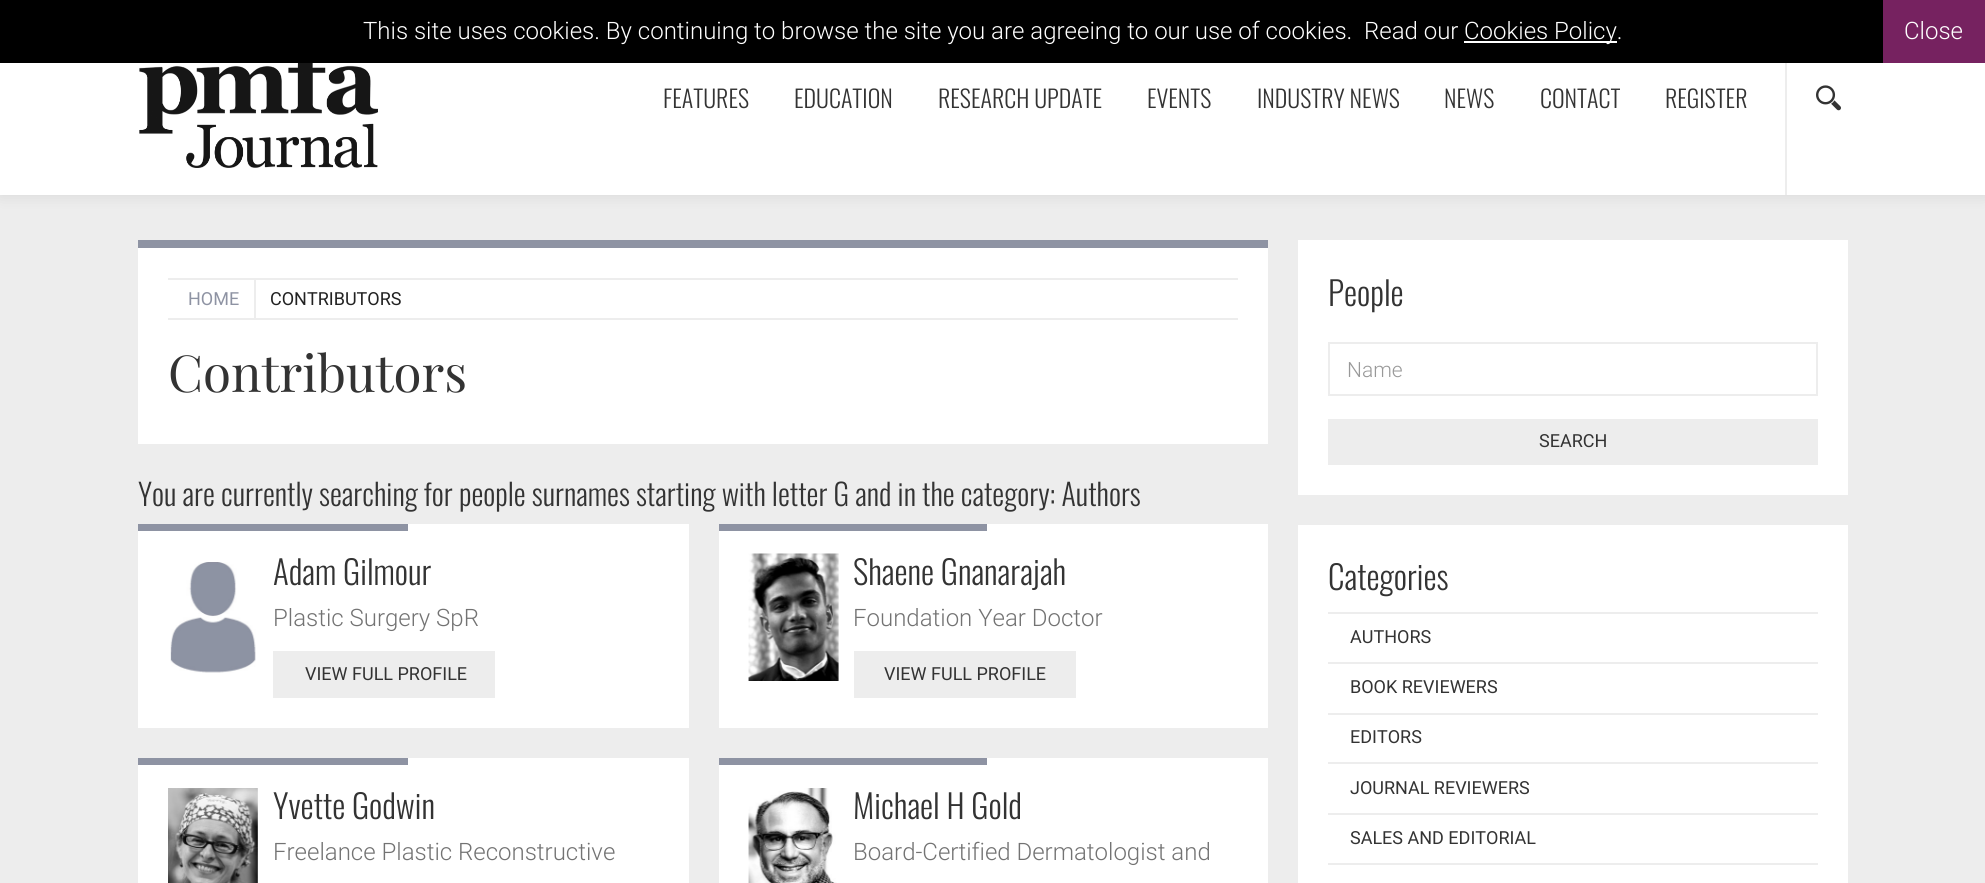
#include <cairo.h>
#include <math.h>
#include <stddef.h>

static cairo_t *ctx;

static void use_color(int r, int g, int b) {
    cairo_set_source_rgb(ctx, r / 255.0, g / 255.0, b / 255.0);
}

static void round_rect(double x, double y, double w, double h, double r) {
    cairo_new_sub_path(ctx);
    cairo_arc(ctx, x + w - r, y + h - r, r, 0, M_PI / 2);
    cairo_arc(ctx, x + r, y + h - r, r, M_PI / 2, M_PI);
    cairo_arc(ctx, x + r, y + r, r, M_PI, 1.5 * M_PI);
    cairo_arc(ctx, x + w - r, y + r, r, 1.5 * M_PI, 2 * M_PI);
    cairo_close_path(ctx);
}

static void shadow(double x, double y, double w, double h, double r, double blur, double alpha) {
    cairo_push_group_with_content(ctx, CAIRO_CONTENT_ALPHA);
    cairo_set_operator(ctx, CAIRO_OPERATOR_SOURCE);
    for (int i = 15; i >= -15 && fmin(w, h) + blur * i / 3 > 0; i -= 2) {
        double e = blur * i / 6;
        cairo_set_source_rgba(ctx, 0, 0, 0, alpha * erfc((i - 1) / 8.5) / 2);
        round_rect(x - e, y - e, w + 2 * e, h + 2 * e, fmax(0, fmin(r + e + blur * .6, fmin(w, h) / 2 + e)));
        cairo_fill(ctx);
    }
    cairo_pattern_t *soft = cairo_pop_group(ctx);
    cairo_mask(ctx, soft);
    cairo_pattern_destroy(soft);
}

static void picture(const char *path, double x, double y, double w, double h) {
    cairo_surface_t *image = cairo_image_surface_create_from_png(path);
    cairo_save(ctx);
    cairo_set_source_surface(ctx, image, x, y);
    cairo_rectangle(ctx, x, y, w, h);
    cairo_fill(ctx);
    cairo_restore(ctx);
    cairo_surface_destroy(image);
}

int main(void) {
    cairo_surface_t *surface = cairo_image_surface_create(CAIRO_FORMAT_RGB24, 1985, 883);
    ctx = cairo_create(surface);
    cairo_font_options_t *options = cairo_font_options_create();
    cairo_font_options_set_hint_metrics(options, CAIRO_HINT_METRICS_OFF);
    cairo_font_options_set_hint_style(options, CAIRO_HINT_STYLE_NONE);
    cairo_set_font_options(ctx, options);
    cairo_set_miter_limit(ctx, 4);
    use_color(237, 237, 237);
    cairo_paint(ctx);
    use_color(0, 0, 0);
    shadow(0, 0, 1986, 195, 0, 7.5, 0.1);
    use_color(0, 0, 0);
    cairo_rectangle(ctx, 0, 0, 1883, 63);
    cairo_fill(ctx);
    cairo_select_font_face(ctx, "Roboto Light", CAIRO_FONT_SLANT_NORMAL, CAIRO_FONT_WEIGHT_NORMAL);
    cairo_set_font_size(ctx, 24);
    use_color(255, 255, 255);
    cairo_move_to(ctx, 363, 39);
    cairo_show_text(ctx, "This site uses cookies. By continuing to browse the site you are agreeing to our use of cookies.");
    cairo_move_to(ctx, 1364, 39);
    cairo_show_text(ctx, "Read our");
    cairo_rectangle(ctx, 1464, 41, 153, 2);
    cairo_fill(ctx);
    cairo_move_to(ctx, 1464, 39);
    cairo_show_text(ctx, "Cookies Policy.");
    use_color(118, 34, 96);
    cairo_rectangle(ctx, 1883, 0, 102, 63);
    cairo_fill(ctx);
    use_color(255, 255, 255);
    cairo_move_to(ctx, 1904, 39);
    cairo_show_text(ctx, "Close");
    cairo_rectangle(ctx, 0, 63, 1985, 132);
    cairo_fill(ctx);
    picture("img1.png", 139, 63, 239, 105);
    cairo_select_font_face(ctx, "Oswald Light", CAIRO_FONT_SLANT_NORMAL, CAIRO_FONT_WEIGHT_NORMAL);
    use_color(51, 51, 51);
    cairo_move_to(ctx, 663, 108);
    cairo_show_text(ctx, "FEATURES");
    cairo_move_to(ctx, 794, 108);
    cairo_show_text(ctx, "EDUCATION");
    cairo_move_to(ctx, 938, 108);
    cairo_show_text(ctx, "RESEARCH UPDATE");
    cairo_move_to(ctx, 1147, 108);
    cairo_show_text(ctx, "EVENTS");
    cairo_move_to(ctx, 1257, 108);
    cairo_show_text(ctx, "INDUSTRY NEWS");
    cairo_move_to(ctx, 1444, 108);
    cairo_show_text(ctx, "NEWS");
    cairo_move_to(ctx, 1540, 108);
    cairo_show_text(ctx, "CONTACT");
    cairo_move_to(ctx, 1665, 108);
    cairo_show_text(ctx, "REGISTER");
    use_color(237, 237, 237);
    cairo_rectangle(ctx, 1785, 63, 2, 132);
    cairo_fill(ctx);
    picture("img2.png", 1816, 85, 25, 26);
    use_color(255, 255, 255);
    cairo_rectangle(ctx, 138, 248, 1130, 196);
    cairo_fill(ctx);
    use_color(142, 147, 163);
    cairo_rectangle(ctx, 138, 240, 1130, 8);
    cairo_fill(ctx);
    use_color(237, 237, 237);
    cairo_rectangle(ctx, 168, 278, 1070, 2);
    cairo_fill(ctx);
    cairo_rectangle(ctx, 168, 318, 1070, 2);
    cairo_fill(ctx);
    cairo_rectangle(ctx, 254, 279, 2, 39);
    cairo_fill(ctx);
    cairo_select_font_face(ctx, "Roboto", CAIRO_FONT_SLANT_NORMAL, CAIRO_FONT_WEIGHT_NORMAL);
    cairo_set_font_size(ctx, 18);
    use_color(142, 147, 163);
    cairo_move_to(ctx, 188, 305);
    cairo_show_text(ctx, "HOME");
    use_color(34, 34, 34);
    cairo_move_to(ctx, 270, 305);
    cairo_show_text(ctx, "CONTRIBUTORS");
    cairo_select_font_face(ctx, "Playfair Display", CAIRO_FONT_SLANT_NORMAL, CAIRO_FONT_WEIGHT_NORMAL);
    cairo_set_font_size(ctx, 51);
    use_color(51, 51, 51);
    cairo_move_to(ctx, 168, 392);
    cairo_show_text(ctx, "Contributors");
    cairo_select_font_face(ctx, "Oswald Light", CAIRO_FONT_SLANT_NORMAL, CAIRO_FONT_WEIGHT_NORMAL);
    cairo_set_font_size(ctx, 30);
    cairo_move_to(ctx, 138, 506);
    cairo_show_text(ctx, "You are currently searching for people surnames starting with letter G and in the category: Authors");
    use_color(255, 255, 255);
    cairo_rectangle(ctx, 138, 524, 551, 204);
    cairo_fill(ctx);
    use_color(142, 147, 163);
    cairo_rectangle(ctx, 138, 524, 270, 7);
    cairo_fill(ctx);
    picture("img3.png", 170, 562, 86, 111);
    cairo_set_font_size(ctx, 33);
    use_color(51, 51, 51);
    cairo_move_to(ctx, 273, 585);
    cairo_show_text(ctx, "Adam Gilmour");
    cairo_select_font_face(ctx, "Roboto Light", CAIRO_FONT_SLANT_NORMAL, CAIRO_FONT_WEIGHT_NORMAL);
    cairo_set_font_size(ctx, 24);
    use_color(115, 115, 115);
    cairo_move_to(ctx, 273, 626);
    cairo_show_text(ctx, "Plastic Surgery SpR");
    use_color(237, 237, 237);
    cairo_rectangle(ctx, 273, 651, 222, 47);
    cairo_fill(ctx);
    cairo_select_font_face(ctx, "Roboto", CAIRO_FONT_SLANT_NORMAL, CAIRO_FONT_WEIGHT_NORMAL);
    cairo_set_font_size(ctx, 18);
    use_color(51, 51, 51);
    cairo_move_to(ctx, 305, 680);
    cairo_show_text(ctx, "VIEW FULL PROFILE");
    use_color(255, 255, 255);
    cairo_rectangle(ctx, 719, 524, 549, 204);
    cairo_fill(ctx);
    use_color(142, 147, 163);
    cairo_rectangle(ctx, 719, 524, 268, 7);
    cairo_fill(ctx);
    picture("img4.png", 748, 553, 91, 128);
    cairo_select_font_face(ctx, "Oswald Light", CAIRO_FONT_SLANT_NORMAL, CAIRO_FONT_WEIGHT_NORMAL);
    cairo_set_font_size(ctx, 33);
    use_color(51, 51, 51);
    cairo_move_to(ctx, 853, 585);
    cairo_show_text(ctx, "Shaene Gnanarajah");
    cairo_select_font_face(ctx, "Roboto Light", CAIRO_FONT_SLANT_NORMAL, CAIRO_FONT_WEIGHT_NORMAL);
    cairo_set_font_size(ctx, 24);
    use_color(115, 115, 115);
    cairo_move_to(ctx, 853, 626);
    cairo_show_text(ctx, "Foundation Year Doctor");
    use_color(237, 237, 237);
    cairo_rectangle(ctx, 854, 651, 222, 47);
    cairo_fill(ctx);
    cairo_select_font_face(ctx, "Roboto", CAIRO_FONT_SLANT_NORMAL, CAIRO_FONT_WEIGHT_NORMAL);
    cairo_set_font_size(ctx, 18);
    use_color(51, 51, 51);
    cairo_move_to(ctx, 884, 680);
    cairo_show_text(ctx, "VIEW FULL PROFILE");
    use_color(255, 255, 255);
    cairo_rectangle(ctx, 138, 758, 551, 125);
    cairo_fill(ctx);
    use_color(142, 147, 163);
    cairo_rectangle(ctx, 138, 758, 270, 7);
    cairo_fill(ctx);
    picture("img5.png", 168, 788, 90, 95);
    cairo_select_font_face(ctx, "Oswald Light", CAIRO_FONT_SLANT_NORMAL, CAIRO_FONT_WEIGHT_NORMAL);
    cairo_set_font_size(ctx, 33);
    use_color(51, 51, 51);
    cairo_move_to(ctx, 273, 819);
    cairo_show_text(ctx, "Yvette Godwin");
    cairo_select_font_face(ctx, "Roboto Light", CAIRO_FONT_SLANT_NORMAL, CAIRO_FONT_WEIGHT_NORMAL);
    cairo_set_font_size(ctx, 24);
    use_color(115, 115, 115);
    cairo_move_to(ctx, 273, 860);
    cairo_show_text(ctx, "Freelance Plastic Reconstructive");
    use_color(255, 255, 255);
    cairo_rectangle(ctx, 719, 758, 549, 125);
    cairo_fill(ctx);
    use_color(142, 147, 163);
    cairo_rectangle(ctx, 719, 758, 268, 7);
    cairo_fill(ctx);
    picture("img6.png", 748, 788, 89, 95);
    cairo_select_font_face(ctx, "Oswald Light", CAIRO_FONT_SLANT_NORMAL, CAIRO_FONT_WEIGHT_NORMAL);
    cairo_set_font_size(ctx, 33);
    use_color(51, 51, 51);
    cairo_move_to(ctx, 853, 819);
    cairo_show_text(ctx, "Michael H Gold");
    cairo_select_font_face(ctx, "Roboto Light", CAIRO_FONT_SLANT_NORMAL, CAIRO_FONT_WEIGHT_NORMAL);
    cairo_set_font_size(ctx, 24);
    use_color(115, 115, 115);
    cairo_move_to(ctx, 853, 860);
    cairo_show_text(ctx, "Board-Certified Dermatologist and");
    use_color(255, 255, 255);
    cairo_rectangle(ctx, 1298, 240, 550, 255);
    cairo_fill(ctx);
    cairo_select_font_face(ctx, "Oswald Light", CAIRO_FONT_SLANT_NORMAL, CAIRO_FONT_WEIGHT_NORMAL);
    cairo_set_font_size(ctx, 33);
    use_color(51, 51, 51);
    cairo_move_to(ctx, 1328, 306);
    cairo_show_text(ctx, "People");
    cairo_rectangle(ctx, 1329, 343, 488, 52);
    use_color(237, 237, 237);
    cairo_stroke(ctx);
    cairo_select_font_face(ctx, "Roboto Light", CAIRO_FONT_SLANT_NORMAL, CAIRO_FONT_WEIGHT_NORMAL);
    cairo_set_font_size(ctx, 21);
    use_color(153, 153, 153);
    cairo_move_to(ctx, 1347, 377);
    cairo_show_text(ctx, "Name");
    use_color(237, 237, 237);
    cairo_rectangle(ctx, 1328, 419, 490, 46);
    cairo_fill(ctx);
    cairo_select_font_face(ctx, "Roboto", CAIRO_FONT_SLANT_NORMAL, CAIRO_FONT_WEIGHT_NORMAL);
    cairo_set_font_size(ctx, 18);
    use_color(51, 51, 51);
    cairo_move_to(ctx, 1539, 447);
    cairo_show_text(ctx, "SEARCH");
    use_color(255, 255, 255);
    cairo_rectangle(ctx, 1298, 525, 550, 358);
    cairo_fill(ctx);
    cairo_select_font_face(ctx, "Oswald Light", CAIRO_FONT_SLANT_NORMAL, CAIRO_FONT_WEIGHT_NORMAL);
    cairo_set_font_size(ctx, 33);
    use_color(51, 51, 51);
    cairo_move_to(ctx, 1328, 590);
    cairo_show_text(ctx, "Categories");
    use_color(237, 237, 237);
    cairo_rectangle(ctx, 1328, 612, 490, 2);
    cairo_fill(ctx);
    cairo_rectangle(ctx, 1328, 662, 490, 2);
    cairo_fill(ctx);
    cairo_select_font_face(ctx, "Roboto", CAIRO_FONT_SLANT_NORMAL, CAIRO_FONT_WEIGHT_NORMAL);
    cairo_set_font_size(ctx, 18);
    use_color(51, 51, 51);
    cairo_move_to(ctx, 1350, 643);
    cairo_show_text(ctx, "AUTHORS");
    use_color(237, 237, 237);
    cairo_rectangle(ctx, 1328, 713, 490, 2);
    cairo_fill(ctx);
    use_color(51, 51, 51);
    cairo_move_to(ctx, 1350, 693);
    cairo_show_text(ctx, "BOOK REVIEWERS");
    use_color(237, 237, 237);
    cairo_rectangle(ctx, 1328, 762, 490, 2);
    cairo_fill(ctx);
    use_color(51, 51, 51);
    cairo_move_to(ctx, 1350, 743);
    cairo_show_text(ctx, "EDITORS");
    use_color(237, 237, 237);
    cairo_rectangle(ctx, 1328, 813, 490, 2);
    cairo_fill(ctx);
    use_color(51, 51, 51);
    cairo_move_to(ctx, 1350, 794);
    cairo_show_text(ctx, "JOURNAL REVIEWERS");
    use_color(237, 237, 237);
    cairo_rectangle(ctx, 1328, 863, 490, 2);
    cairo_fill(ctx);
    use_color(51, 51, 51);
    cairo_move_to(ctx, 1350, 844);
    cairo_show_text(ctx, "SALES AND EDITORIAL");
    cairo_surface_write_to_png(surface, "result.png");
    cairo_font_options_destroy(options);
    cairo_destroy(ctx);
    cairo_surface_destroy(surface);
    return 0;
}
